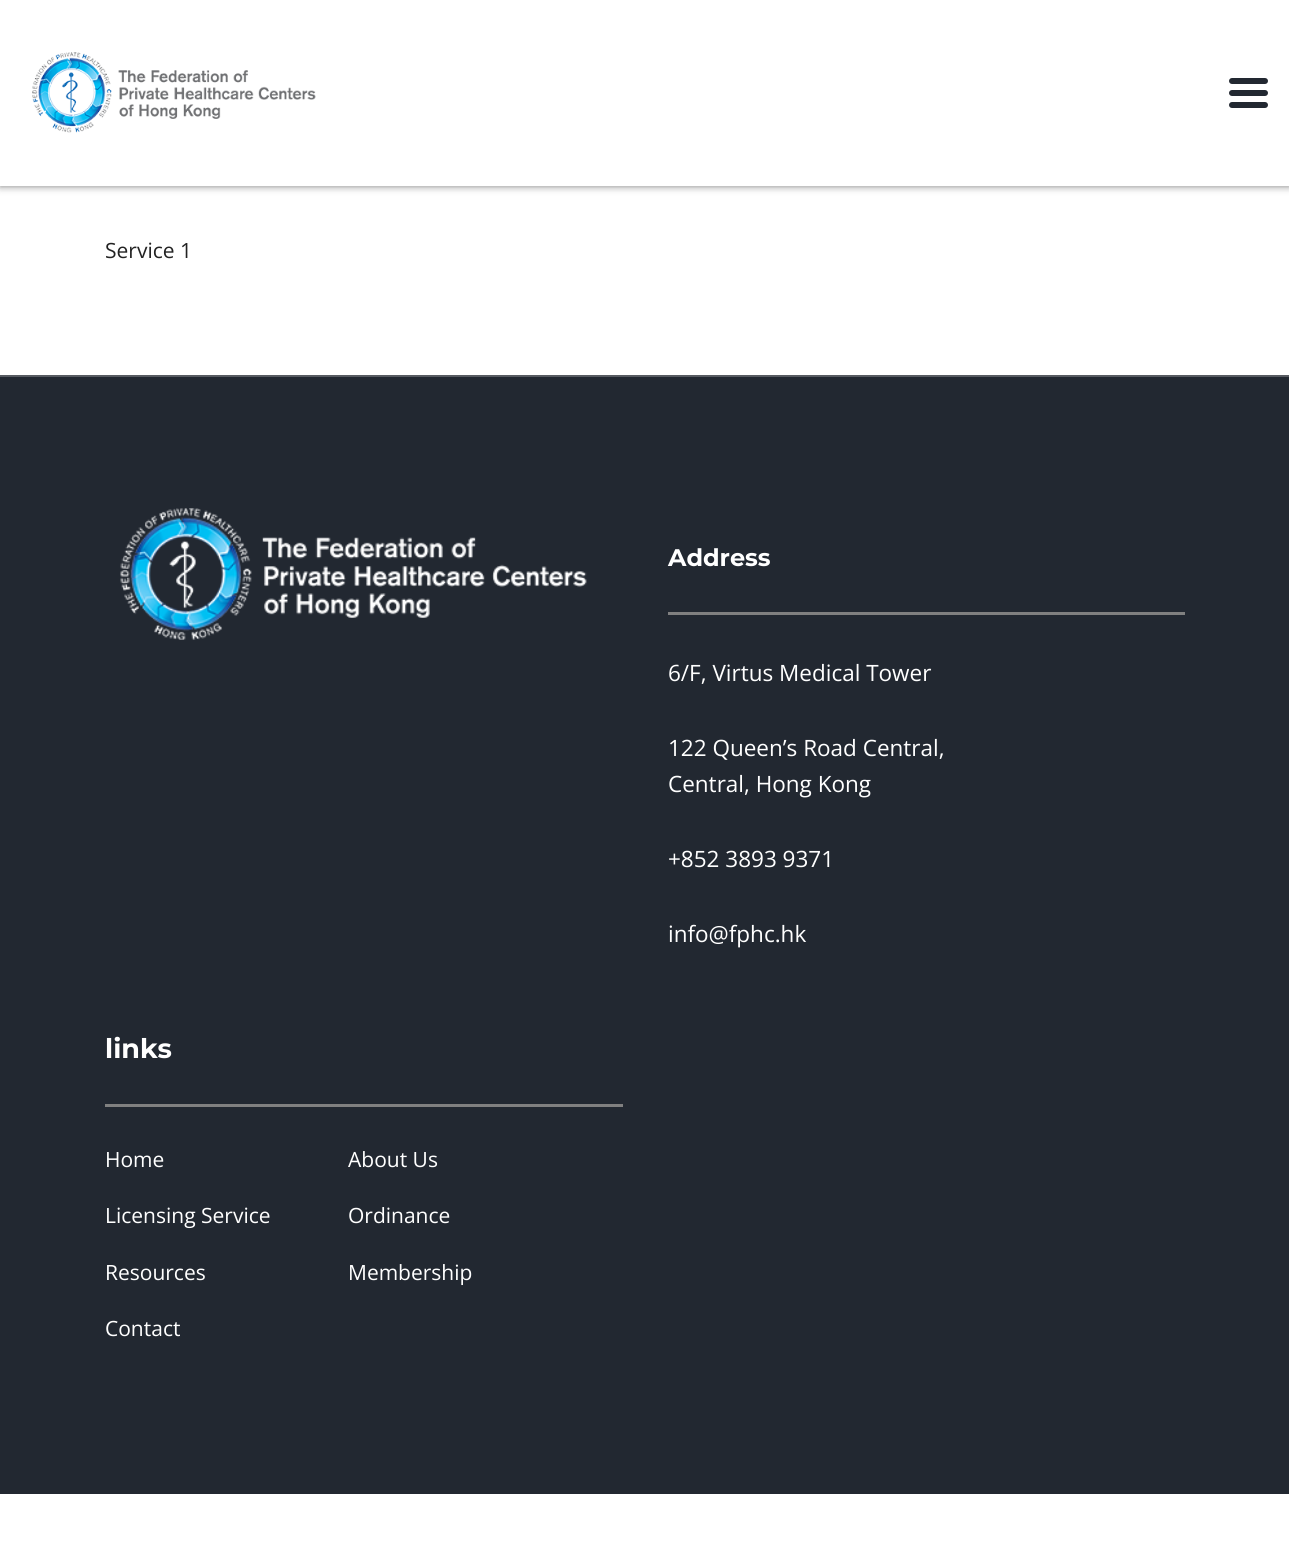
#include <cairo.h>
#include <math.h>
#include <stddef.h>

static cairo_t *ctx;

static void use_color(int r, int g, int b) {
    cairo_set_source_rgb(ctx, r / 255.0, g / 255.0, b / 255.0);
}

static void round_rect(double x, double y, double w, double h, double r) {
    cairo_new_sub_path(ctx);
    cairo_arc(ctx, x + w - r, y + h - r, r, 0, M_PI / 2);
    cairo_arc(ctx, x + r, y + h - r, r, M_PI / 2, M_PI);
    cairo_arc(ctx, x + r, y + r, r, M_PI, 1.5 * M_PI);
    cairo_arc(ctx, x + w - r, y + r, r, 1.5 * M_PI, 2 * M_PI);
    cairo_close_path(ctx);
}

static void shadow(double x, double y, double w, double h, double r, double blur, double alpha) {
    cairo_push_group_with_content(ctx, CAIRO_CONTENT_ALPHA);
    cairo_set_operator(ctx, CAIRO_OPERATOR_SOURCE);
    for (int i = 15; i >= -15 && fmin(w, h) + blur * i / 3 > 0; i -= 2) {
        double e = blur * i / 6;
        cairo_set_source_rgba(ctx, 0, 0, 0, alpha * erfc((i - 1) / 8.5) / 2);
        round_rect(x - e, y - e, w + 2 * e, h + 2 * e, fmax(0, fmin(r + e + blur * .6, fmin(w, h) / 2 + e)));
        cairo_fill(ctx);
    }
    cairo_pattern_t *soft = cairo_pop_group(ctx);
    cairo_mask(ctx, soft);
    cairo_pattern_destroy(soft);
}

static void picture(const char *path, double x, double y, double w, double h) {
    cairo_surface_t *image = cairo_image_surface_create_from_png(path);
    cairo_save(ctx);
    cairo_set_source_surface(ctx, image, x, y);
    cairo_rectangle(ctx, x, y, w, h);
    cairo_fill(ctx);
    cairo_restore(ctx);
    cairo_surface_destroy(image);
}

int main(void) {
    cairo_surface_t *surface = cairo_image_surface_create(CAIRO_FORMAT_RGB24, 1289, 1563);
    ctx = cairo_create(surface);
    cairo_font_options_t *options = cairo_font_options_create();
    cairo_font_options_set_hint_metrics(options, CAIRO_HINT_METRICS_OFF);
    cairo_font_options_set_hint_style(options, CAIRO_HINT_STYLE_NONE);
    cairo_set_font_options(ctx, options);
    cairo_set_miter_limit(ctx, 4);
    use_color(255, 255, 255);
    cairo_paint(ctx);
    use_color(0, 0, 0);
    shadow(0, 0, 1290, 186, 0, 4, 0.52);
    use_color(255, 255, 255);
    cairo_rectangle(ctx, 0, 0, 1289, 186);
    cairo_fill(ctx);
    picture("img1.png", 32, 52, 284, 81);
    use_color(34, 40, 49);
    round_rect(1229, 90, 39, 6, 3);
    cairo_fill(ctx);
    round_rect(1229, 78, 39, 6, 3);
    cairo_fill(ctx);
    round_rect(1229, 102, 39, 6, 3);
    cairo_fill(ctx);
    cairo_select_font_face(ctx, "Open Sans", CAIRO_FONT_SLANT_NORMAL, CAIRO_FONT_WEIGHT_NORMAL);
    cairo_set_font_size(ctx, 21);
    use_color(34, 34, 34);
    cairo_move_to(ctx, 105, 258);
    cairo_show_text(ctx, "Service 1");
    use_color(34, 40, 49);
    cairo_rectangle(ctx, 0, 377, 1289, 1117);
    cairo_fill(ctx);
    use_color(87, 91, 97);
    cairo_rectangle(ctx, 0, 375, 1289, 2);
    cairo_fill(ctx);
    picture("img2.png", 120, 508, 467, 132);
    cairo_select_font_face(ctx, "Montserrat", CAIRO_FONT_SLANT_NORMAL, CAIRO_FONT_WEIGHT_BOLD);
    cairo_set_font_size(ctx, 24);
    use_color(255, 255, 255);
    cairo_move_to(ctx, 668, 566);
    cairo_show_text(ctx, "Address");
    use_color(128, 128, 128);
    cairo_rectangle(ctx, 668, 612, 517, 3);
    cairo_fill(ctx);
    cairo_select_font_face(ctx, "Open Sans", CAIRO_FONT_SLANT_NORMAL, CAIRO_FONT_WEIGHT_NORMAL);
    cairo_set_font_size(ctx, 22.5);
    use_color(255, 255, 255);
    cairo_move_to(ctx, 668, 681);
    cairo_show_text(ctx, "6/F, Virtus Medical Tower");
    cairo_move_to(ctx, 668, 756);
    cairo_show_text(ctx, "122 Queen’s Road Central,");
    cairo_move_to(ctx, 668, 792);
    cairo_show_text(ctx, "Central, Hong Kong");
    cairo_move_to(ctx, 668, 867);
    cairo_show_text(ctx, "+852 3893 9371");
    cairo_move_to(ctx, 668, 942);
    cairo_show_text(ctx, "info@fphc.hk");
    cairo_select_font_face(ctx, "Montserrat", CAIRO_FONT_SLANT_NORMAL, CAIRO_FONT_WEIGHT_BOLD);
    cairo_set_font_size(ctx, 27);
    cairo_move_to(ctx, 105, 1058);
    cairo_show_text(ctx, "links");
    use_color(128, 128, 128);
    cairo_rectangle(ctx, 105, 1104, 518, 3);
    cairo_fill(ctx);
    cairo_select_font_face(ctx, "Open Sans", CAIRO_FONT_SLANT_NORMAL, CAIRO_FONT_WEIGHT_NORMAL);
    cairo_set_font_size(ctx, 21);
    use_color(255, 255, 255);
    cairo_move_to(ctx, 105, 1167);
    cairo_show_text(ctx, "Home");
    cairo_move_to(ctx, 348, 1167);
    cairo_show_text(ctx, "About Us");
    cairo_move_to(ctx, 105, 1223);
    cairo_show_text(ctx, "Licensing Service");
    cairo_move_to(ctx, 348, 1223);
    cairo_show_text(ctx, "Ordinance");
    cairo_move_to(ctx, 105, 1280);
    cairo_show_text(ctx, "Resources");
    cairo_move_to(ctx, 348, 1280);
    cairo_show_text(ctx, "Membership");
    cairo_move_to(ctx, 105, 1336);
    cairo_show_text(ctx, "Contact");
    cairo_surface_write_to_png(surface, "result.png");
    cairo_font_options_destroy(options);
    cairo_destroy(ctx);
    cairo_surface_destroy(surface);
    return 0;
}
